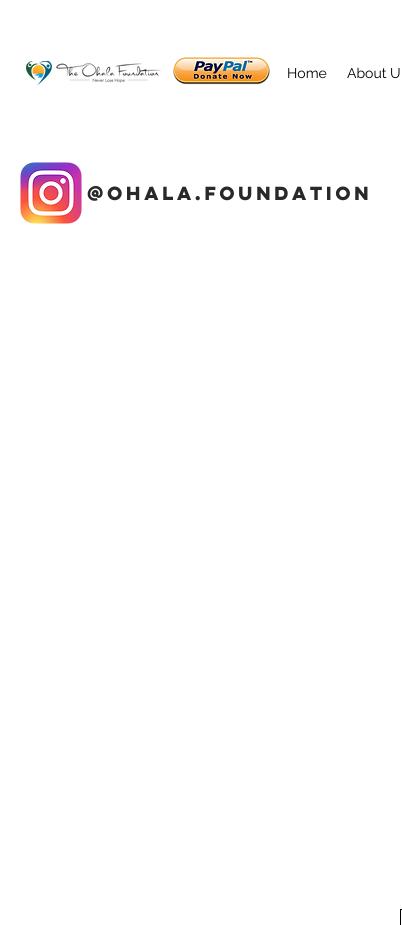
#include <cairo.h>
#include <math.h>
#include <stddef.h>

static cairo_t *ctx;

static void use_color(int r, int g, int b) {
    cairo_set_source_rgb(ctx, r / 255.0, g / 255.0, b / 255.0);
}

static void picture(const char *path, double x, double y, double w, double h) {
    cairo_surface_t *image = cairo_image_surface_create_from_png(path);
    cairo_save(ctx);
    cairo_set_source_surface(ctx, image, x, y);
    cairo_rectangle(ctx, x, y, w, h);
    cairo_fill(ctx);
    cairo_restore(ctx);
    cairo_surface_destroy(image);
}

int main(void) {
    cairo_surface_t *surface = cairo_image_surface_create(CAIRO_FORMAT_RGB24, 402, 925);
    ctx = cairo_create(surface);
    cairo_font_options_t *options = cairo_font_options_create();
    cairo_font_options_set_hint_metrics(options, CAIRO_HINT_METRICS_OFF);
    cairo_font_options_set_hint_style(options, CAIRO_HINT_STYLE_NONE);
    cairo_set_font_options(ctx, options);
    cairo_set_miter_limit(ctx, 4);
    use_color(255, 255, 255);
    cairo_paint(ctx);
    picture("img1.png", 26, 61, 135, 24);
    picture("img2.png", 173, 57, 97, 28);
    cairo_select_font_face(ctx, "Raleway", CAIRO_FONT_SLANT_NORMAL, CAIRO_FONT_WEIGHT_NORMAL);
    cairo_set_font_size(ctx, 14);
    use_color(0, 0, 0);
    cairo_move_to(ctx, 287, 78);
    cairo_show_text(ctx, "Home");
    cairo_move_to(ctx, 347, 78);
    cairo_show_text(ctx, "About U");
    picture("img3.png", 20, 162, 62, 62);
    cairo_select_font_face(ctx, "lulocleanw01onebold", CAIRO_FONT_SLANT_NORMAL, CAIRO_FONT_WEIGHT_BOLD);
    cairo_set_font_size(ctx, 17);
    use_color(41, 41, 41);
    cairo_move_to(ctx, 87, 200);
    cairo_show_text(ctx, "@ohala.foundation");
    cairo_rectangle(ctx, 400.5, 909.5, 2, 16);
    use_color(0, 0, 0);
    cairo_set_line_width(ctx, 1);
    cairo_stroke(ctx);
    cairo_surface_write_to_png(surface, "result.png");
    cairo_font_options_destroy(options);
    cairo_destroy(ctx);
    cairo_surface_destroy(surface);
    return 0;
}
